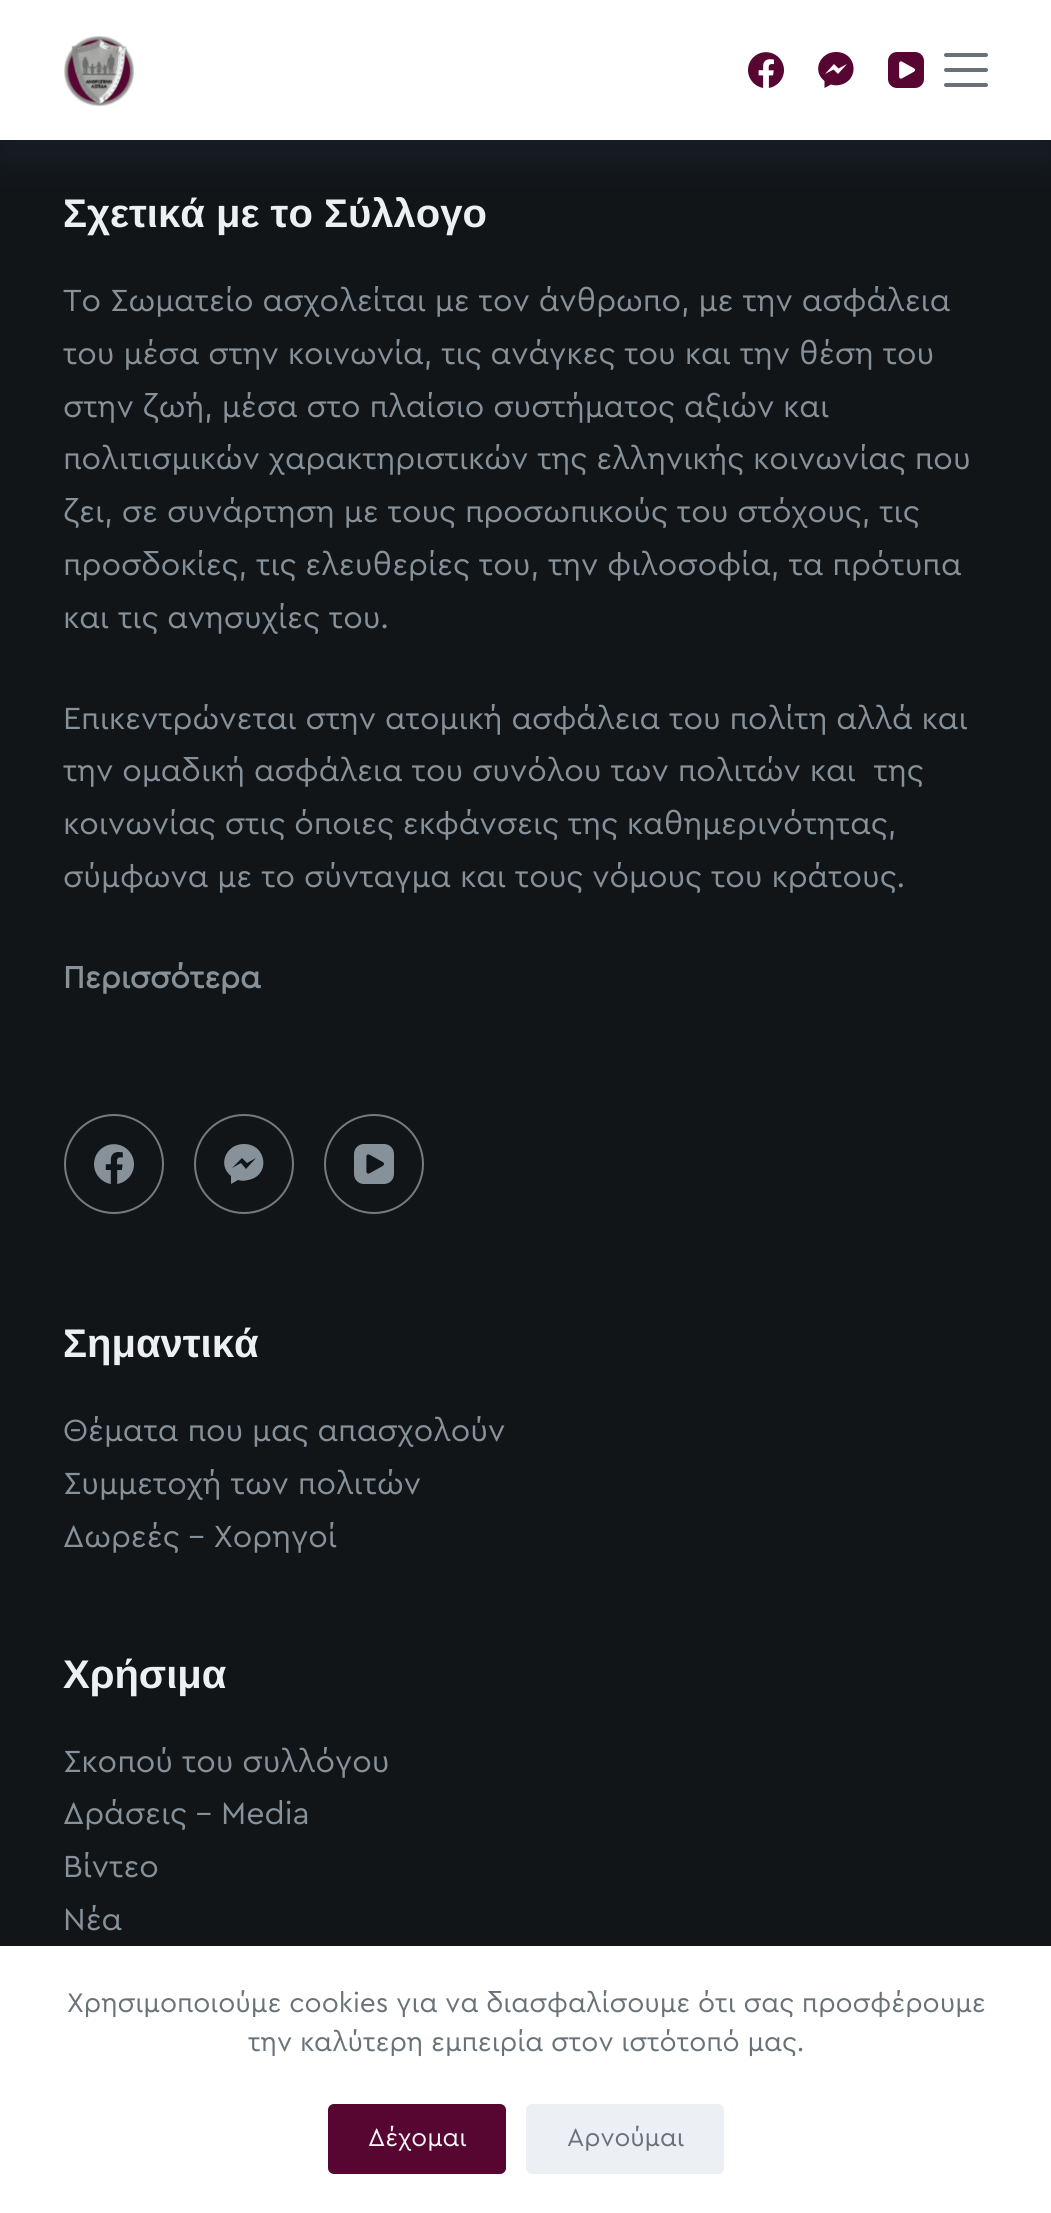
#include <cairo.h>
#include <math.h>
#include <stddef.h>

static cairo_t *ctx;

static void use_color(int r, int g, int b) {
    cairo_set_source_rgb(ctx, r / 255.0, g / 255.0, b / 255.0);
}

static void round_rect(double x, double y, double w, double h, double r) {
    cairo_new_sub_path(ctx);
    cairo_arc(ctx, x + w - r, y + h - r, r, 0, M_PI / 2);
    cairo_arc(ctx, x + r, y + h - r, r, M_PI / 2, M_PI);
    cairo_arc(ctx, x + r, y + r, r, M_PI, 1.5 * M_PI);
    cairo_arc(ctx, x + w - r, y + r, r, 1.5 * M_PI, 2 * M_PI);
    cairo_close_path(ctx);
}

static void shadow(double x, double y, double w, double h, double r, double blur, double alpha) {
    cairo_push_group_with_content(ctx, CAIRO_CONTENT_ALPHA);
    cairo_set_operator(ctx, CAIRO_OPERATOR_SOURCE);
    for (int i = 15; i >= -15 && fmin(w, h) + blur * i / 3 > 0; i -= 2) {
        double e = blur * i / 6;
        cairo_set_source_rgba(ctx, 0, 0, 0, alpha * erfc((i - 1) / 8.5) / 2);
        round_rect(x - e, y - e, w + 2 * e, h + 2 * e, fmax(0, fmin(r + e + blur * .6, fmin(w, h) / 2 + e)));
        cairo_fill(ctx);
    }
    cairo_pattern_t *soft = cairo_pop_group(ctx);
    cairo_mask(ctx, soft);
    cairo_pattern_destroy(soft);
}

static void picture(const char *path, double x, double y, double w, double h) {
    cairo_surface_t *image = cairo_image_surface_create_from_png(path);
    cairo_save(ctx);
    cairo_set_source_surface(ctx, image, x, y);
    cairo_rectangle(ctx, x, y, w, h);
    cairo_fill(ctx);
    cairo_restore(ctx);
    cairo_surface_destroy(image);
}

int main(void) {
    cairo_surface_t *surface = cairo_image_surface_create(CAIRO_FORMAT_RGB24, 1051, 2213);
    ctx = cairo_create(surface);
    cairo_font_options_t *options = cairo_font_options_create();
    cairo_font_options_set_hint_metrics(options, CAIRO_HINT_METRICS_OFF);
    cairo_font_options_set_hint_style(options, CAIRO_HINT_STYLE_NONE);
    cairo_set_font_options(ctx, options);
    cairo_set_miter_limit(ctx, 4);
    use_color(17, 21, 24);
    cairo_paint(ctx);
    use_color(43, 61, 79);
    shadow(0, 20, 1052, 140, 0, 20, 0.23);
    use_color(255, 255, 255);
    cairo_rectangle(ctx, 0, 0, 1051, 140);
    cairo_fill(ctx);
    picture("img1.png", 64, 36, 70, 70);
    picture("img2.png", 748, 52, 36, 36);
    use_color(87, 6, 50);
    cairo_new_path(ctx);
    cairo_move_to(ctx, 836, 52);
    cairo_curve_to(ctx, 820, 52, 811.5, 71, 824.5, 81);
    cairo_line_to(ctx, 824.5, 88);
    cairo_line_to(ctx, 831, 84.5);
    cairo_curve_to(ctx, 833.5, 85.5, 837, 85.5, 839.5, 85);
    cairo_curve_to(ctx, 860, 81, 857.5, 52, 836, 52);
    cairo_close_path(ctx);
    cairo_move_to(ctx, 838, 74);
    cairo_line_to(ctx, 833.5, 69.5);
    cairo_line_to(ctx, 825, 74);
    cairo_line_to(ctx, 834, 64);
    cairo_line_to(ctx, 838.5, 68.5);
    cairo_line_to(ctx, 847, 64);
    cairo_close_path(ctx);
    cairo_fill(ctx);
    picture("img3.png", 888, 52, 36, 36);
    use_color(104, 114, 121);
    round_rect(944, 53, 44, 4, 2);
    cairo_fill(ctx);
    round_rect(944, 68, 44, 4, 2);
    cairo_fill(ctx);
    round_rect(944, 83, 44, 4, 2);
    cairo_fill(ctx);
    cairo_select_font_face(ctx, "Liberation Sans", CAIRO_FONT_SLANT_NORMAL, CAIRO_FONT_WEIGHT_BOLD);
    cairo_set_font_size(ctx, 40);
    use_color(237, 239, 242);
    cairo_move_to(ctx, 63, 227);
    cairo_show_text(ctx, "Σχετικά με το Σύλλογο");
    cairo_select_font_face(ctx, "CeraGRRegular", CAIRO_FONT_SLANT_NORMAL, CAIRO_FONT_WEIGHT_NORMAL);
    cairo_set_font_size(ctx, 32);
    use_color(134, 145, 154);
    cairo_move_to(ctx, 63, 311);
    cairo_show_text(ctx, "Το Σωματείο ασχολείται με τον άνθρωπο, με την ασφάλεια");
    cairo_move_to(ctx, 63, 364);
    cairo_show_text(ctx, "του μέσα στην κοινωνία, τις ανάγκες του και την θέση του");
    cairo_move_to(ctx, 63, 417);
    cairo_show_text(ctx, "στην ζωή, μέσα στο πλαίσιο συστήματος αξιών και");
    cairo_move_to(ctx, 63, 469);
    cairo_show_text(ctx, "πολιτισμικών χαρακτηριστικών της ελληνικής κοινωνίας που");
    cairo_move_to(ctx, 63, 522);
    cairo_show_text(ctx, "ζει, σε συνάρτηση με τους προσωπικούς του στόχους, τις");
    cairo_move_to(ctx, 63, 575);
    cairo_show_text(ctx, "προσδοκίες, τις ελευθερίες του, την φιλοσοφία, τα πρότυπα");
    cairo_move_to(ctx, 63, 628);
    cairo_show_text(ctx, "και τις ανησυχίες του.");
    cairo_move_to(ctx, 63, 729);
    cairo_show_text(ctx, "Επικεντρώνεται στην ατομική ασφάλεια του πολίτη αλλά και");
    cairo_move_to(ctx, 63, 781);
    cairo_show_text(ctx, "την ομαδική ασφάλεια του συνόλου των πολιτών και  της");
    cairo_move_to(ctx, 63, 834);
    cairo_show_text(ctx, "κοινωνίας στις όποιες εκφάνσεις της καθημερινότητας,");
    cairo_move_to(ctx, 63, 887);
    cairo_show_text(ctx, "σύμφωνα με το σύνταγμα και τους νόμους του κράτους.");
    cairo_select_font_face(ctx, "CeraGRRegular", CAIRO_FONT_SLANT_NORMAL, CAIRO_FONT_WEIGHT_BOLD);
    cairo_move_to(ctx, 63, 988);
    cairo_show_text(ctx, "Περισσότερα");
    cairo_new_path(ctx);
    cairo_arc(ctx, 114, 1164, 49, 0, 2 * M_PI);
    use_color(118, 122, 126);
    cairo_stroke(ctx);
    picture("img4.png", 94, 1144, 40, 40);
    cairo_arc(ctx, 244, 1164, 49, 0, 2 * M_PI);
    cairo_stroke(ctx);
    use_color(134, 145, 154);
    cairo_new_path(ctx);
    cairo_move_to(ctx, 244, 1144);
    cairo_curve_to(ctx, 226, 1144, 217, 1165, 231, 1176);
    cairo_line_to(ctx, 231, 1184);
    cairo_line_to(ctx, 238, 1180);
    cairo_curve_to(ctx, 241, 1181, 245, 1181, 248, 1180);
    cairo_curve_to(ctx, 271, 1176, 267, 1144, 244, 1144);
    cairo_close_path(ctx);
    cairo_move_to(ctx, 246, 1169);
    cairo_line_to(ctx, 241, 1163);
    cairo_line_to(ctx, 232, 1168);
    cairo_line_to(ctx, 242, 1158);
    cairo_line_to(ctx, 247, 1163);
    cairo_line_to(ctx, 256, 1158);
    cairo_close_path(ctx);
    cairo_fill(ctx);
    cairo_arc(ctx, 374, 1164, 49, 0, 2 * M_PI);
    use_color(118, 122, 126);
    cairo_stroke(ctx);
    picture("img5.png", 354, 1144, 40, 40);
    cairo_select_font_face(ctx, "Liberation Sans", CAIRO_FONT_SLANT_NORMAL, CAIRO_FONT_WEIGHT_BOLD);
    cairo_set_font_size(ctx, 40);
    use_color(237, 239, 242);
    cairo_move_to(ctx, 63, 1357);
    cairo_show_text(ctx, "Σημαντικά");
    cairo_select_font_face(ctx, "CeraGRRegular", CAIRO_FONT_SLANT_NORMAL, CAIRO_FONT_WEIGHT_NORMAL);
    cairo_set_font_size(ctx, 32);
    use_color(134, 145, 154);
    cairo_move_to(ctx, 63, 1441);
    cairo_show_text(ctx, "Θέματα που μας απασχολούν");
    cairo_move_to(ctx, 63, 1494);
    cairo_show_text(ctx, "Συμμετοχή των πολιτών");
    cairo_move_to(ctx, 63, 1547);
    cairo_show_text(ctx, "Δωρεές – Χορηγοί");
    cairo_select_font_face(ctx, "Liberation Sans", CAIRO_FONT_SLANT_NORMAL, CAIRO_FONT_WEIGHT_BOLD);
    cairo_set_font_size(ctx, 40);
    use_color(237, 239, 242);
    cairo_move_to(ctx, 63, 1688);
    cairo_show_text(ctx, "Χρήσιμα");
    cairo_select_font_face(ctx, "CeraGRRegular", CAIRO_FONT_SLANT_NORMAL, CAIRO_FONT_WEIGHT_NORMAL);
    cairo_set_font_size(ctx, 32);
    use_color(134, 145, 154);
    cairo_move_to(ctx, 63, 1772);
    cairo_show_text(ctx, "Σκοπού του συλλόγου");
    cairo_move_to(ctx, 63, 1824);
    cairo_show_text(ctx, "Δράσεις – Media");
    cairo_move_to(ctx, 63, 1877);
    cairo_show_text(ctx, "Βίντεο");
    cairo_move_to(ctx, 63, 1930);
    cairo_show_text(ctx, "Νέα");
    use_color(255, 255, 255);
    cairo_rectangle(ctx, 0, 1946, 1051, 267);
    cairo_fill(ctx);
    cairo_set_font_size(ctx, 28);
    use_color(104, 114, 121);
    cairo_move_to(ctx, 67, 2012);
    cairo_show_text(ctx, "Χρησιμοποιούμε cookies για να διασφαλίσουμε ότι σας προσφέρουμε");
    cairo_move_to(ctx, 248, 2051);
    cairo_show_text(ctx, "την καλύτερη εμπειρία στον ιστότοπό μας.");
    use_color(87, 6, 50);
    round_rect(328, 2104, 178, 70, 6);
    cairo_fill(ctx);
    cairo_set_font_size(ctx, 26);
    use_color(246, 246, 246);
    cairo_move_to(ctx, 368, 2146);
    cairo_show_text(ctx, "Δέχομαι");
    use_color(236, 239, 243);
    round_rect(526, 2104, 198, 70, 6);
    cairo_fill(ctx);
    use_color(104, 114, 121);
    cairo_move_to(ctx, 567, 2146);
    cairo_show_text(ctx, "Αρνούμαι");
    cairo_surface_write_to_png(surface, "result.png");
    cairo_font_options_destroy(options);
    cairo_destroy(ctx);
    cairo_surface_destroy(surface);
    return 0;
}
